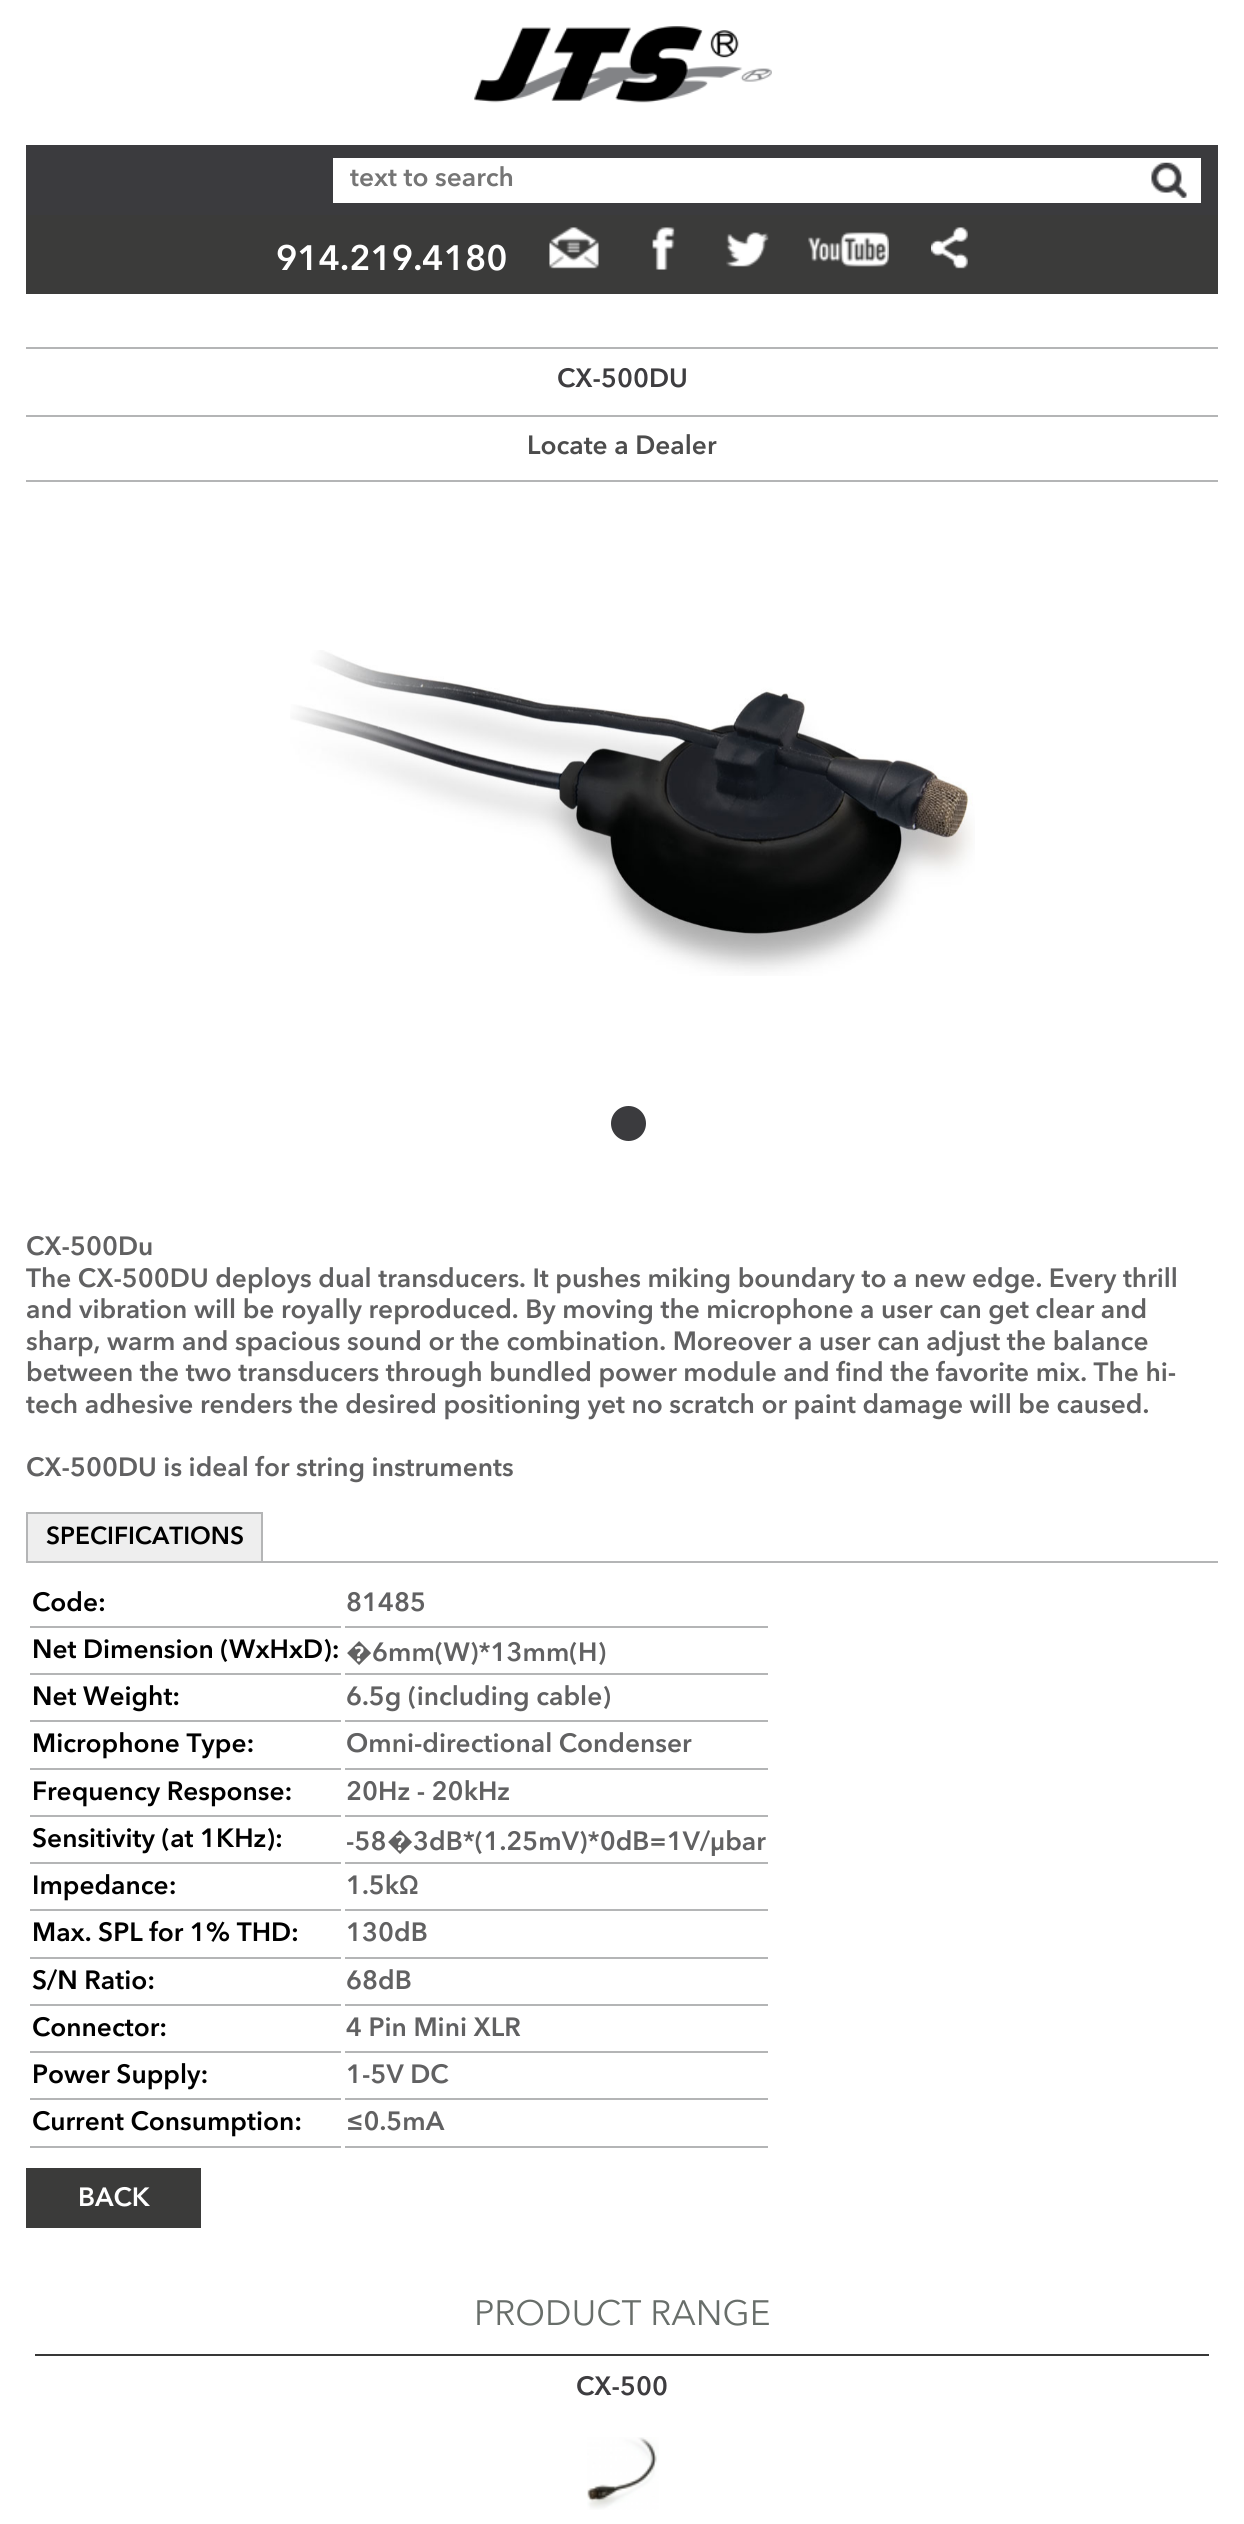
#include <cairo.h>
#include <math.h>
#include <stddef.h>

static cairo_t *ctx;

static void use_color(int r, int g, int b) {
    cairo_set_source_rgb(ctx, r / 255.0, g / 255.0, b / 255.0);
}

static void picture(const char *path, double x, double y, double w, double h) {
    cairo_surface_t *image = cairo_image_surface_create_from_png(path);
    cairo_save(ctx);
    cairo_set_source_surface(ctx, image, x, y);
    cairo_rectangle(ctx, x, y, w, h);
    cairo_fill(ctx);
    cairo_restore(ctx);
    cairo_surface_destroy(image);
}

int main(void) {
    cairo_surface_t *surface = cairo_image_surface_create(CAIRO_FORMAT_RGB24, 1244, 2524);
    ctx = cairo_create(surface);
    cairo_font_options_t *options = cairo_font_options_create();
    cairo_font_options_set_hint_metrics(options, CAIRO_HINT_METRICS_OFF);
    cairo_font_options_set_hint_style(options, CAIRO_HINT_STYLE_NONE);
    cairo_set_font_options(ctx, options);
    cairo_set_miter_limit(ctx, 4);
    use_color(255, 255, 255);
    cairo_paint(ctx);
    picture("img1.png", 474, 26, 298, 77);
    use_color(59, 59, 62);
    cairo_rectangle(ctx, 26, 145, 1192, 70);
    cairo_fill(ctx);
    use_color(255, 255, 255);
    cairo_rectangle(ctx, 333, 158, 868, 45);
    cairo_fill(ctx);
    cairo_select_font_face(ctx, "Avenir Next SemiBold", CAIRO_FONT_SLANT_NORMAL, CAIRO_FONT_WEIGHT_NORMAL);
    cairo_set_font_size(ctx, 26.25);
    use_color(117, 117, 117);
    cairo_move_to(ctx, 350, 186);
    cairo_show_text(ctx, "text to search");
    picture("img2.png", 1151, 162, 36, 36);
    use_color(59, 59, 58);
    cairo_rectangle(ctx, 26, 215, 1192, 79);
    cairo_fill(ctx);
    cairo_set_font_size(ctx, 35);
    use_color(255, 255, 255);
    cairo_move_to(ctx, 276, 270);
    cairo_show_text(ctx, "914.219.4180");
    picture("img3.png", 549, 227, 50, 42);
    picture("img4.png", 652, 227, 23, 43);
    picture("img5.png", 726, 232, 43, 35);
    picture("img6.png", 808, 232, 81, 35);
    picture("img7.png", 931, 227, 37, 42);
    use_color(180, 181, 182);
    cairo_rectangle(ctx, 26, 347, 1192, 2);
    cairo_fill(ctx);
    cairo_set_font_size(ctx, 26.25);
    use_color(62, 61, 64);
    cairo_move_to(ctx, 557, 387);
    cairo_show_text(ctx, "CX-500DU");
    use_color(180, 181, 182);
    cairo_rectangle(ctx, 26, 415, 1192, 2);
    cairo_fill(ctx);
    cairo_rectangle(ctx, 26, 480, 1192, 2);
    cairo_fill(ctx);
    use_color(76, 76, 76);
    cairo_move_to(ctx, 527, 454);
    cairo_show_text(ctx, "Locate a Dealer");
    picture("img8.png", 290, 650, 685, 326);
    use_color(59, 59, 62);
    cairo_arc(ctx, 628.5, 1123.5, 16.5, 0, 2 * M_PI);
    cairo_fill_preserve(ctx);
    cairo_stroke(ctx);
    use_color(97, 97, 98);
    cairo_move_to(ctx, 26, 1255);
    cairo_show_text(ctx, "CX-500Du");
    cairo_move_to(ctx, 26, 1287);
    cairo_show_text(ctx, "The CX-500DU deploys dual transducers. It pushes miking boundary to a new edge. Every thrill");
    cairo_move_to(ctx, 26, 1318);
    cairo_show_text(ctx, "and vibration will be royally reproduced. By moving the microphone a user can get clear and");
    cairo_move_to(ctx, 26, 1350);
    cairo_show_text(ctx, "sharp, warm and spacious sound or the combination. Moreover a user can adjust the balance");
    cairo_move_to(ctx, 26, 1381);
    cairo_show_text(ctx, "between the two transducers through bundled power module and find the favorite mix. The hi-");
    cairo_move_to(ctx, 26, 1413);
    cairo_show_text(ctx, "tech adhesive renders the desired positioning yet no scratch or paint damage will be caused.");
    cairo_move_to(ctx, 26, 1476);
    cairo_show_text(ctx, "CX-500DU is ideal for string instruments");
    use_color(238, 238, 238);
    cairo_rectangle(ctx, 28, 1514, 233, 47);
    cairo_fill(ctx);
    use_color(180, 181, 182);
    cairo_rectangle(ctx, 26, 1512, 237, 2);
    cairo_fill(ctx);
    cairo_rectangle(ctx, 261, 1512, 2, 49);
    cairo_fill(ctx);
    cairo_rectangle(ctx, 26, 1512, 2, 49);
    cairo_fill(ctx);
    cairo_set_font_size(ctx, 24.5);
    use_color(0, 0, 0);
    cairo_move_to(ctx, 46, 1544);
    cairo_show_text(ctx, "SPECIFICATIONS");
    use_color(180, 181, 182);
    cairo_rectangle(ctx, 26, 1561, 1192, 2);
    cairo_fill(ctx);
    cairo_rectangle(ctx, 30, 1626, 311, 2);
    cairo_fill(ctx);
    cairo_set_font_size(ctx, 26.25);
    use_color(0, 0, 0);
    cairo_move_to(ctx, 32, 1611);
    cairo_show_text(ctx, "Code:");
    use_color(180, 181, 182);
    cairo_rectangle(ctx, 345, 1626, 423, 2);
    cairo_fill(ctx);
    use_color(97, 97, 98);
    cairo_move_to(ctx, 346, 1611);
    cairo_show_text(ctx, "81485");
    use_color(180, 181, 182);
    cairo_rectangle(ctx, 30, 1673, 311, 2);
    cairo_fill(ctx);
    use_color(0, 0, 0);
    cairo_move_to(ctx, 32, 1658);
    cairo_show_text(ctx, "Net Dimension (WxHxD):");
    use_color(180, 181, 182);
    cairo_rectangle(ctx, 345, 1673, 423, 2);
    cairo_fill(ctx);
    cairo_select_font_face(ctx, "Noto Sans", CAIRO_FONT_SLANT_NORMAL, CAIRO_FONT_WEIGHT_NORMAL);
    use_color(97, 97, 98);
    cairo_move_to(ctx, 346, 1661);
    cairo_show_text(ctx, "�");
    cairo_select_font_face(ctx, "Avenir Next SemiBold", CAIRO_FONT_SLANT_NORMAL, CAIRO_FONT_WEIGHT_NORMAL);
    cairo_move_to(ctx, 372, 1661);
    cairo_show_text(ctx, "6mm(W)*13mm(H)");
    use_color(180, 181, 182);
    cairo_rectangle(ctx, 30, 1720, 311, 2);
    cairo_fill(ctx);
    use_color(0, 0, 0);
    cairo_move_to(ctx, 32, 1705);
    cairo_show_text(ctx, "Net Weight:");
    use_color(180, 181, 182);
    cairo_rectangle(ctx, 345, 1720, 423, 2);
    cairo_fill(ctx);
    use_color(97, 97, 98);
    cairo_move_to(ctx, 346, 1705);
    cairo_show_text(ctx, "6.5g (including cable)");
    use_color(180, 181, 182);
    cairo_rectangle(ctx, 30, 1768, 311, 2);
    cairo_fill(ctx);
    use_color(0, 0, 0);
    cairo_move_to(ctx, 32, 1752);
    cairo_show_text(ctx, "Microphone Type:");
    use_color(180, 181, 182);
    cairo_rectangle(ctx, 345, 1768, 423, 2);
    cairo_fill(ctx);
    use_color(97, 97, 98);
    cairo_move_to(ctx, 346, 1752);
    cairo_show_text(ctx, "Omni-directional Condenser");
    use_color(180, 181, 182);
    cairo_rectangle(ctx, 30, 1815, 311, 2);
    cairo_fill(ctx);
    use_color(0, 0, 0);
    cairo_move_to(ctx, 32, 1800);
    cairo_show_text(ctx, "Frequency Response:");
    use_color(180, 181, 182);
    cairo_rectangle(ctx, 345, 1815, 423, 2);
    cairo_fill(ctx);
    use_color(97, 97, 98);
    cairo_move_to(ctx, 346, 1800);
    cairo_show_text(ctx, "20Hz - 20kHz");
    use_color(180, 181, 182);
    cairo_rectangle(ctx, 30, 1862, 311, 2);
    cairo_fill(ctx);
    use_color(0, 0, 0);
    cairo_move_to(ctx, 32, 1847);
    cairo_show_text(ctx, "Sensitivity (at 1KHz):");
    use_color(180, 181, 182);
    cairo_rectangle(ctx, 345, 1862, 423, 2);
    cairo_fill(ctx);
    use_color(97, 97, 98);
    cairo_move_to(ctx, 346, 1850);
    cairo_show_text(ctx, "-58");
    cairo_select_font_face(ctx, "Noto Sans", CAIRO_FONT_SLANT_NORMAL, CAIRO_FONT_WEIGHT_NORMAL);
    cairo_move_to(ctx, 387, 1850);
    cairo_show_text(ctx, "�");
    cairo_select_font_face(ctx, "Avenir Next SemiBold", CAIRO_FONT_SLANT_NORMAL, CAIRO_FONT_WEIGHT_NORMAL);
    cairo_move_to(ctx, 413, 1850);
    cairo_show_text(ctx, "3dB*(1.25mV)*0dB=1V/μbar");
    use_color(180, 181, 182);
    cairo_rectangle(ctx, 30, 1909, 311, 2);
    cairo_fill(ctx);
    use_color(0, 0, 0);
    cairo_move_to(ctx, 32, 1894);
    cairo_show_text(ctx, "Impedance:");
    use_color(180, 181, 182);
    cairo_rectangle(ctx, 345, 1909, 423, 2);
    cairo_fill(ctx);
    use_color(97, 97, 98);
    cairo_move_to(ctx, 346, 1894);
    cairo_show_text(ctx, "1.5kΩ");
    use_color(180, 181, 182);
    cairo_rectangle(ctx, 30, 1957, 311, 2);
    cairo_fill(ctx);
    use_color(0, 0, 0);
    cairo_move_to(ctx, 32, 1941);
    cairo_show_text(ctx, "Max. SPL for 1% THD:");
    use_color(180, 181, 182);
    cairo_rectangle(ctx, 345, 1957, 423, 2);
    cairo_fill(ctx);
    use_color(97, 97, 98);
    cairo_move_to(ctx, 346, 1941);
    cairo_show_text(ctx, "130dB");
    use_color(180, 181, 182);
    cairo_rectangle(ctx, 30, 2004, 311, 2);
    cairo_fill(ctx);
    use_color(0, 0, 0);
    cairo_move_to(ctx, 32, 1989);
    cairo_show_text(ctx, "S/N Ratio:");
    use_color(180, 181, 182);
    cairo_rectangle(ctx, 345, 2004, 423, 2);
    cairo_fill(ctx);
    use_color(97, 97, 98);
    cairo_move_to(ctx, 346, 1989);
    cairo_show_text(ctx, "68dB");
    use_color(180, 181, 182);
    cairo_rectangle(ctx, 30, 2051, 311, 2);
    cairo_fill(ctx);
    use_color(0, 0, 0);
    cairo_move_to(ctx, 32, 2036);
    cairo_show_text(ctx, "Connector:");
    use_color(180, 181, 182);
    cairo_rectangle(ctx, 345, 2051, 423, 2);
    cairo_fill(ctx);
    use_color(97, 97, 98);
    cairo_move_to(ctx, 346, 2036);
    cairo_show_text(ctx, "4 Pin Mini XLR");
    use_color(180, 181, 182);
    cairo_rectangle(ctx, 30, 2098, 311, 2);
    cairo_fill(ctx);
    use_color(0, 0, 0);
    cairo_move_to(ctx, 32, 2083);
    cairo_show_text(ctx, "Power Supply:");
    use_color(180, 181, 182);
    cairo_rectangle(ctx, 345, 2098, 423, 2);
    cairo_fill(ctx);
    use_color(97, 97, 98);
    cairo_move_to(ctx, 346, 2083);
    cairo_show_text(ctx, "1-5V DC");
    use_color(180, 181, 182);
    cairo_rectangle(ctx, 30, 2146, 311, 2);
    cairo_fill(ctx);
    use_color(0, 0, 0);
    cairo_move_to(ctx, 32, 2130);
    cairo_show_text(ctx, "Current Consumption:");
    use_color(180, 181, 182);
    cairo_rectangle(ctx, 345, 2146, 423, 2);
    cairo_fill(ctx);
    use_color(97, 97, 98);
    cairo_move_to(ctx, 346, 2130);
    cairo_show_text(ctx, "≤0.5mA");
    use_color(59, 59, 58);
    cairo_rectangle(ctx, 26, 2168, 175, 60);
    cairo_fill(ctx);
    use_color(255, 255, 255);
    cairo_move_to(ctx, 78, 2206);
    cairo_show_text(ctx, "BACK");
    use_color(56, 56, 56);
    cairo_rectangle(ctx, 35, 2354, 1174, 2);
    cairo_fill(ctx);
    cairo_select_font_face(ctx, "Avenir Next", CAIRO_FONT_SLANT_NORMAL, CAIRO_FONT_WEIGHT_NORMAL);
    cairo_set_font_size(ctx, 35);
    use_color(104, 110, 106);
    cairo_move_to(ctx, 474, 2325);
    cairo_show_text(ctx, "PRODUCT RANGE");
    cairo_select_font_face(ctx, "Avenir Next SemiBold", CAIRO_FONT_SLANT_NORMAL, CAIRO_FONT_WEIGHT_NORMAL);
    cairo_set_font_size(ctx, 26.25);
    use_color(62, 61, 64);
    cairo_move_to(ctx, 576, 2395);
    cairo_show_text(ctx, "CX-500");
    picture("img9.png", 587, 2437, 72, 73);
    cairo_surface_write_to_png(surface, "result.png");
    cairo_font_options_destroy(options);
    cairo_destroy(ctx);
    cairo_surface_destroy(surface);
    return 0;
}
